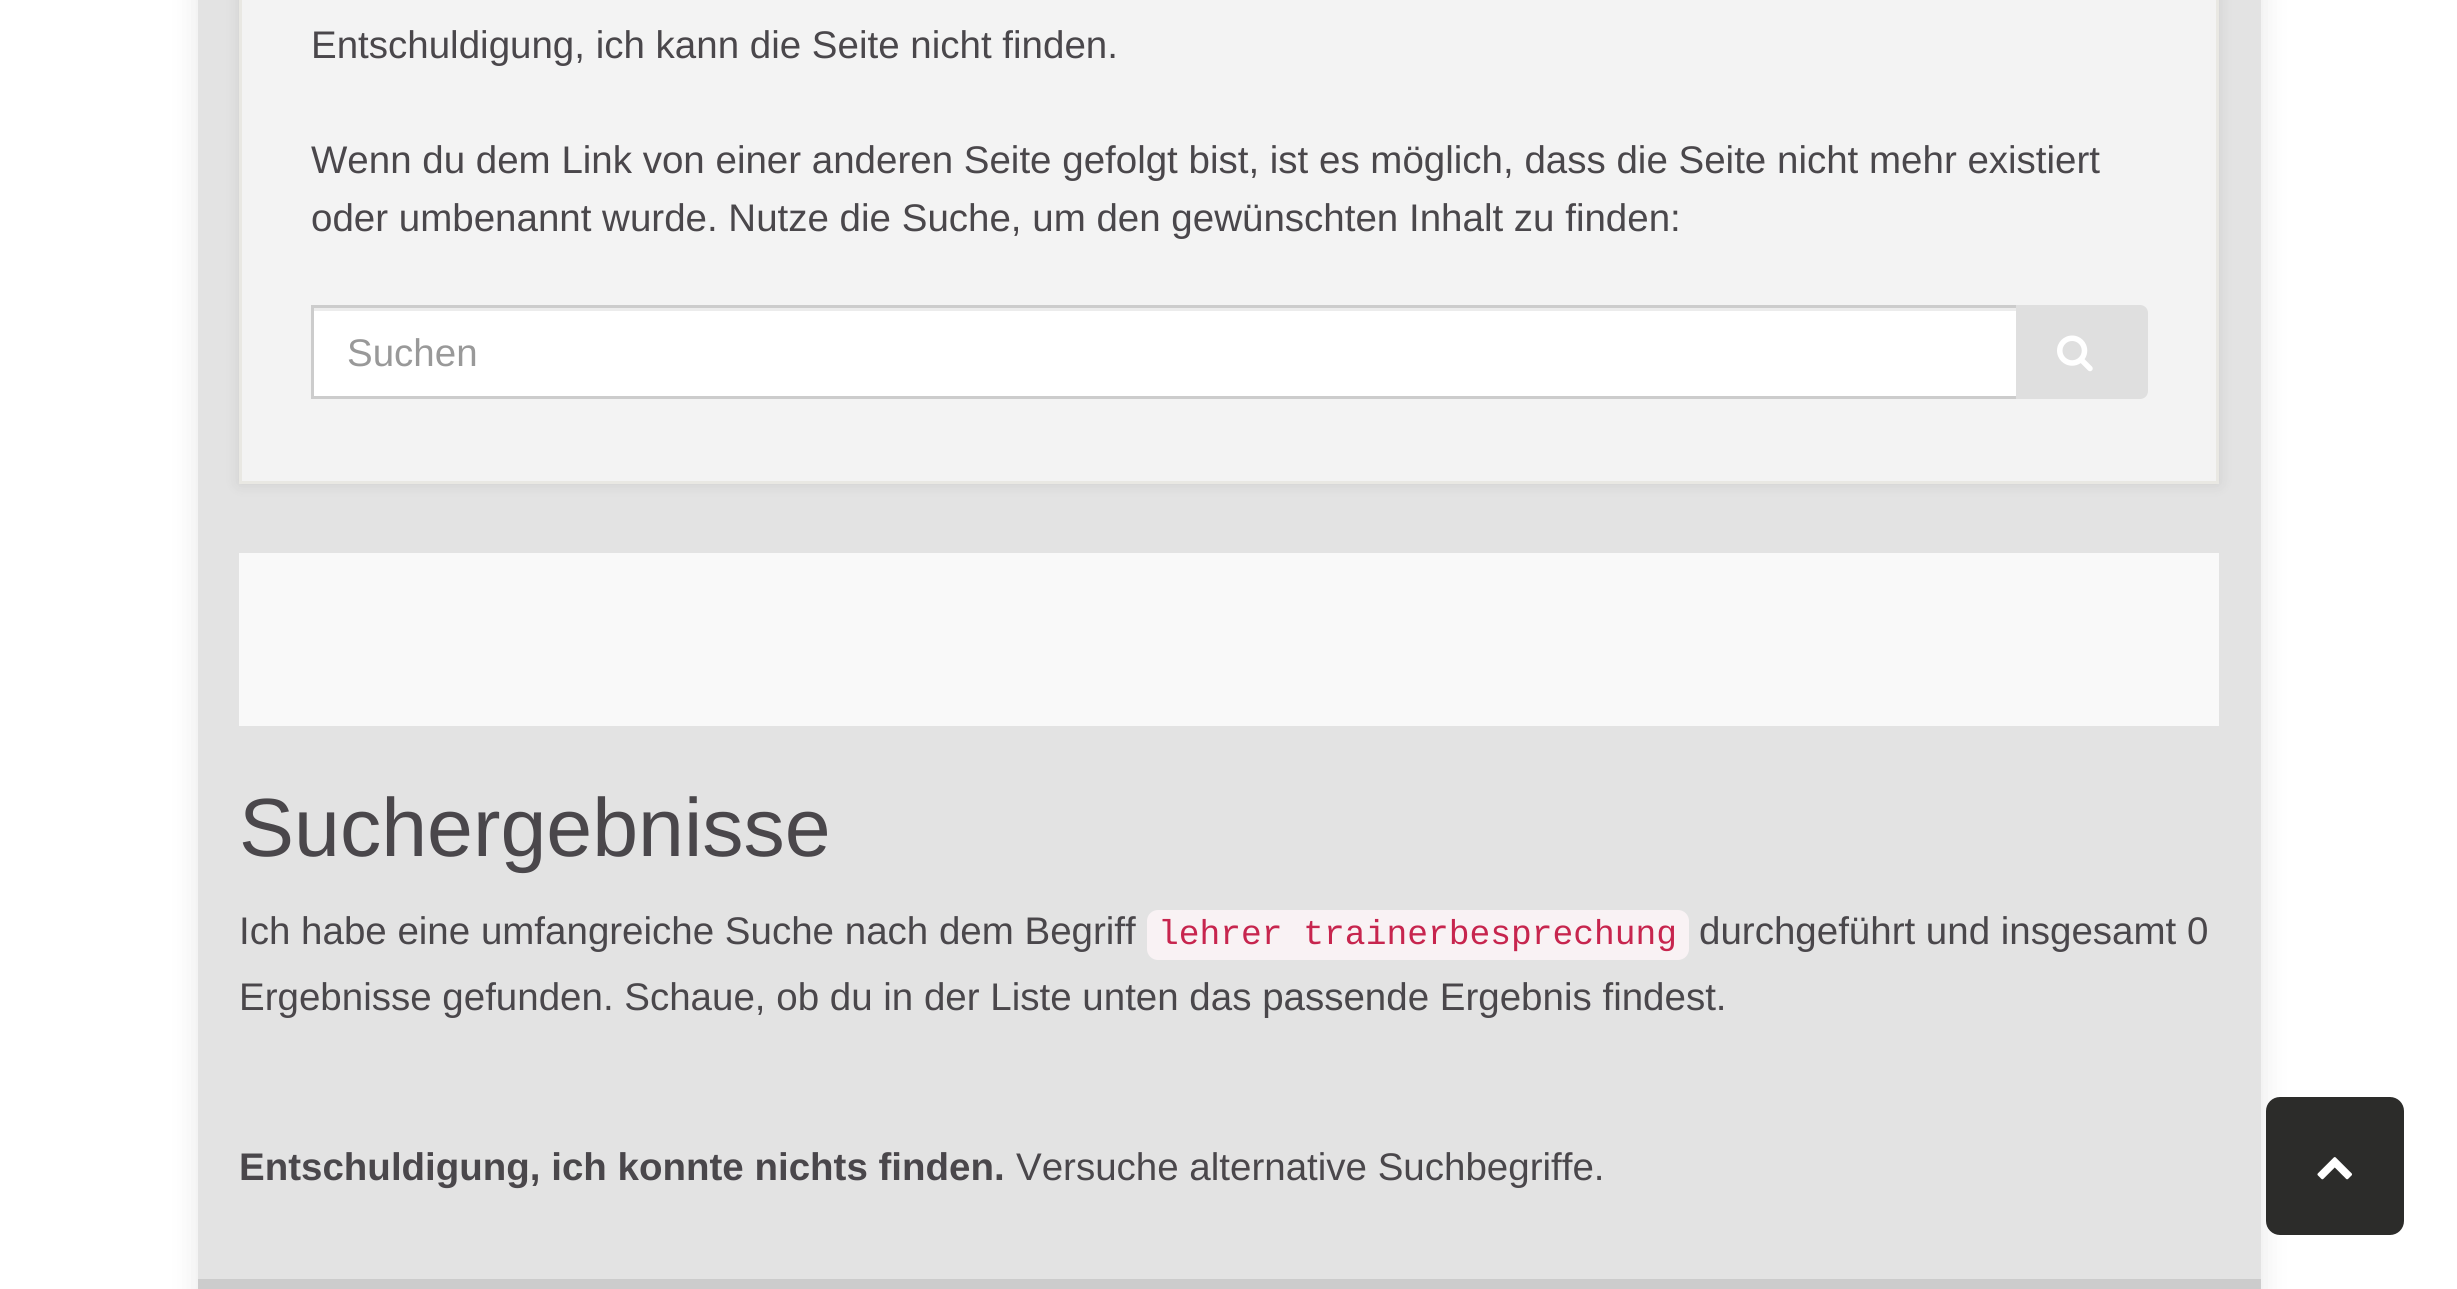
#include <cairo.h>
#include <math.h>
#include <stddef.h>

static cairo_t *ctx;

static void use_color(int r, int g, int b) {
    cairo_set_source_rgb(ctx, r / 255.0, g / 255.0, b / 255.0);
}

static void round_rect(double x, double y, double w, double h, double r) {
    cairo_new_sub_path(ctx);
    cairo_arc(ctx, x + w - r, y + h - r, r, 0, M_PI / 2);
    cairo_arc(ctx, x + r, y + h - r, r, M_PI / 2, M_PI);
    cairo_arc(ctx, x + r, y + r, r, M_PI, 1.5 * M_PI);
    cairo_arc(ctx, x + w - r, y + r, r, 1.5 * M_PI, 2 * M_PI);
    cairo_close_path(ctx);
}

static void shadow(double x, double y, double w, double h, double r, double blur, double alpha) {
    cairo_push_group_with_content(ctx, CAIRO_CONTENT_ALPHA);
    cairo_set_operator(ctx, CAIRO_OPERATOR_SOURCE);
    for (int i = 15; i >= -15 && fmin(w, h) + blur * i / 3 > 0; i -= 2) {
        double e = blur * i / 6;
        cairo_set_source_rgba(ctx, 0, 0, 0, alpha * erfc((i - 1) / 8.5) / 2);
        round_rect(x - e, y - e, w + 2 * e, h + 2 * e, fmax(0, fmin(r + e + blur * .6, fmin(w, h) / 2 + e)));
        cairo_fill(ctx);
    }
    cairo_pattern_t *soft = cairo_pop_group(ctx);
    cairo_mask(ctx, soft);
    cairo_pattern_destroy(soft);
}

static void picture(const char *path, double x, double y, double w, double h) {
    cairo_surface_t *image = cairo_image_surface_create_from_png(path);
    cairo_save(ctx);
    cairo_set_source_surface(ctx, image, x, y);
    cairo_rectangle(ctx, x, y, w, h);
    cairo_fill(ctx);
    cairo_restore(ctx);
    cairo_surface_destroy(image);
}

int main(void) {
    cairo_surface_t *surface = cairo_image_surface_create(CAIRO_FORMAT_RGB24, 2457, 1289);
    ctx = cairo_create(surface);
    cairo_font_options_t *options = cairo_font_options_create();
    cairo_font_options_set_hint_metrics(options, CAIRO_HINT_METRICS_OFF);
    cairo_font_options_set_hint_style(options, CAIRO_HINT_STYLE_NONE);
    cairo_set_font_options(ctx, options);
    cairo_set_miter_limit(ctx, 4);
    use_color(255, 255, 255);
    cairo_paint(ctx);
    use_color(0, 0, 0);
    shadow(198, -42, 2063, 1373, 0, 14, 0.1);
    use_color(227, 227, 227);
    cairo_rectangle(ctx, 198, 0, 2063, 1279);
    cairo_fill(ctx);
    use_color(0, 0, 0);
    shadow(239, -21, 1980, 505, 0, 7, 0.1);
    use_color(243, 243, 243);
    cairo_rectangle(ctx, 240.5, -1.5, 1977, 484);
    cairo_fill_preserve(ctx);
    use_color(233, 232, 227);
    cairo_set_line_width(ctx, 3);
    cairo_stroke(ctx);
    cairo_select_font_face(ctx, "Liberation Sans", CAIRO_FONT_SLANT_NORMAL, CAIRO_FONT_WEIGHT_NORMAL);
    cairo_set_font_size(ctx, 38.5);
    use_color(74, 71, 75);
    cairo_move_to(ctx, 311, 58);
    cairo_show_text(ctx, "Entschuldigung, ich kann die Seite nicht finden.");
    cairo_move_to(ctx, 311, 173);
    cairo_show_text(ctx, "Wenn du dem Link von einer anderen Seite gefolgt bist, ist es möglich, dass die Seite nicht mehr existiert");
    cairo_move_to(ctx, 311, 231);
    cairo_show_text(ctx, "oder umbenannt wurde. Nutze die Suche, um den gewünschten Inhalt zu finden:");
    use_color(255, 255, 255);
    cairo_rectangle(ctx, 314, 311, 1702, 85);
    cairo_fill(ctx);
    use_color(236, 236, 236);
    cairo_rectangle(ctx, 314, 308, 1702, 3);
    cairo_fill(ctx);
    cairo_rectangle(ctx, 312.5, 306.5, 1705, 91);
    use_color(204, 204, 204);
    cairo_stroke(ctx);
    use_color(153, 153, 153);
    cairo_move_to(ctx, 347, 366);
    cairo_show_text(ctx, "Suchen");
    use_color(223, 223, 223);
    cairo_new_path(ctx);
    cairo_move_to(ctx, 2016, 305);
    cairo_line_to(ctx, 2140, 305);
    cairo_curve_to(ctx, 2144.5, 305, 2148, 308.5, 2148, 313);
    cairo_line_to(ctx, 2148, 391);
    cairo_curve_to(ctx, 2148, 395.5, 2144.5, 399, 2140, 399);
    cairo_line_to(ctx, 2016, 399);
    cairo_close_path(ctx);
    cairo_fill(ctx);
    picture("img1.png", 2057, 335, 36, 37);
    use_color(249, 249, 249);
    cairo_rectangle(ctx, 239, 553, 1980, 173);
    cairo_fill(ctx);
    cairo_set_font_size(ctx, 82.5);
    use_color(74, 71, 75);
    cairo_move_to(ctx, 239, 856);
    cairo_show_text(ctx, "Suchergebnisse");
    cairo_set_font_size(ctx, 38.5);
    cairo_move_to(ctx, 239, 944);
    cairo_show_text(ctx, "Ich habe eine umfangreiche Suche nach dem Begriff");
    use_color(249, 242, 244);
    round_rect(1147, 910, 542, 50, 11);
    cairo_fill(ctx);
    cairo_select_font_face(ctx, "Liberation Mono", CAIRO_FONT_SLANT_NORMAL, CAIRO_FONT_WEIGHT_NORMAL);
    cairo_set_font_size(ctx, 34.6);
    use_color(199, 37, 78);
    cairo_move_to(ctx, 1158, 944);
    cairo_show_text(ctx, "lehrer trainerbesprechung");
    cairo_select_font_face(ctx, "Liberation Sans", CAIRO_FONT_SLANT_NORMAL, CAIRO_FONT_WEIGHT_NORMAL);
    cairo_set_font_size(ctx, 38.5);
    use_color(74, 71, 75);
    cairo_move_to(ctx, 1699, 944);
    cairo_show_text(ctx, "durchgeführt und insgesamt 0");
    cairo_move_to(ctx, 239, 1010);
    cairo_show_text(ctx, "Ergebnisse gefunden. Schaue, ob du in der Liste unten das passende Ergebnis findest.");
    cairo_select_font_face(ctx, "Liberation Sans", CAIRO_FONT_SLANT_NORMAL, CAIRO_FONT_WEIGHT_BOLD);
    cairo_move_to(ctx, 239, 1180);
    cairo_show_text(ctx, "Entschuldigung, ich konnte nichts finden.");
    cairo_select_font_face(ctx, "Liberation Sans", CAIRO_FONT_SLANT_NORMAL, CAIRO_FONT_WEIGHT_NORMAL);
    cairo_move_to(ctx, 1016, 1180);
    cairo_show_text(ctx, "Versuche alternative Suchbegriffe.");
    use_color(204, 204, 204);
    cairo_rectangle(ctx, 198, 1279, 2063, 10);
    cairo_fill(ctx);
    use_color(44, 44, 42);
    round_rect(2266, 1097, 138, 138, 14);
    cairo_fill(ctx);
    picture("img2.png", 2317, 1157, 35, 23);
    cairo_surface_write_to_png(surface, "result.png");
    cairo_font_options_destroy(options);
    cairo_destroy(ctx);
    cairo_surface_destroy(surface);
    return 0;
}
